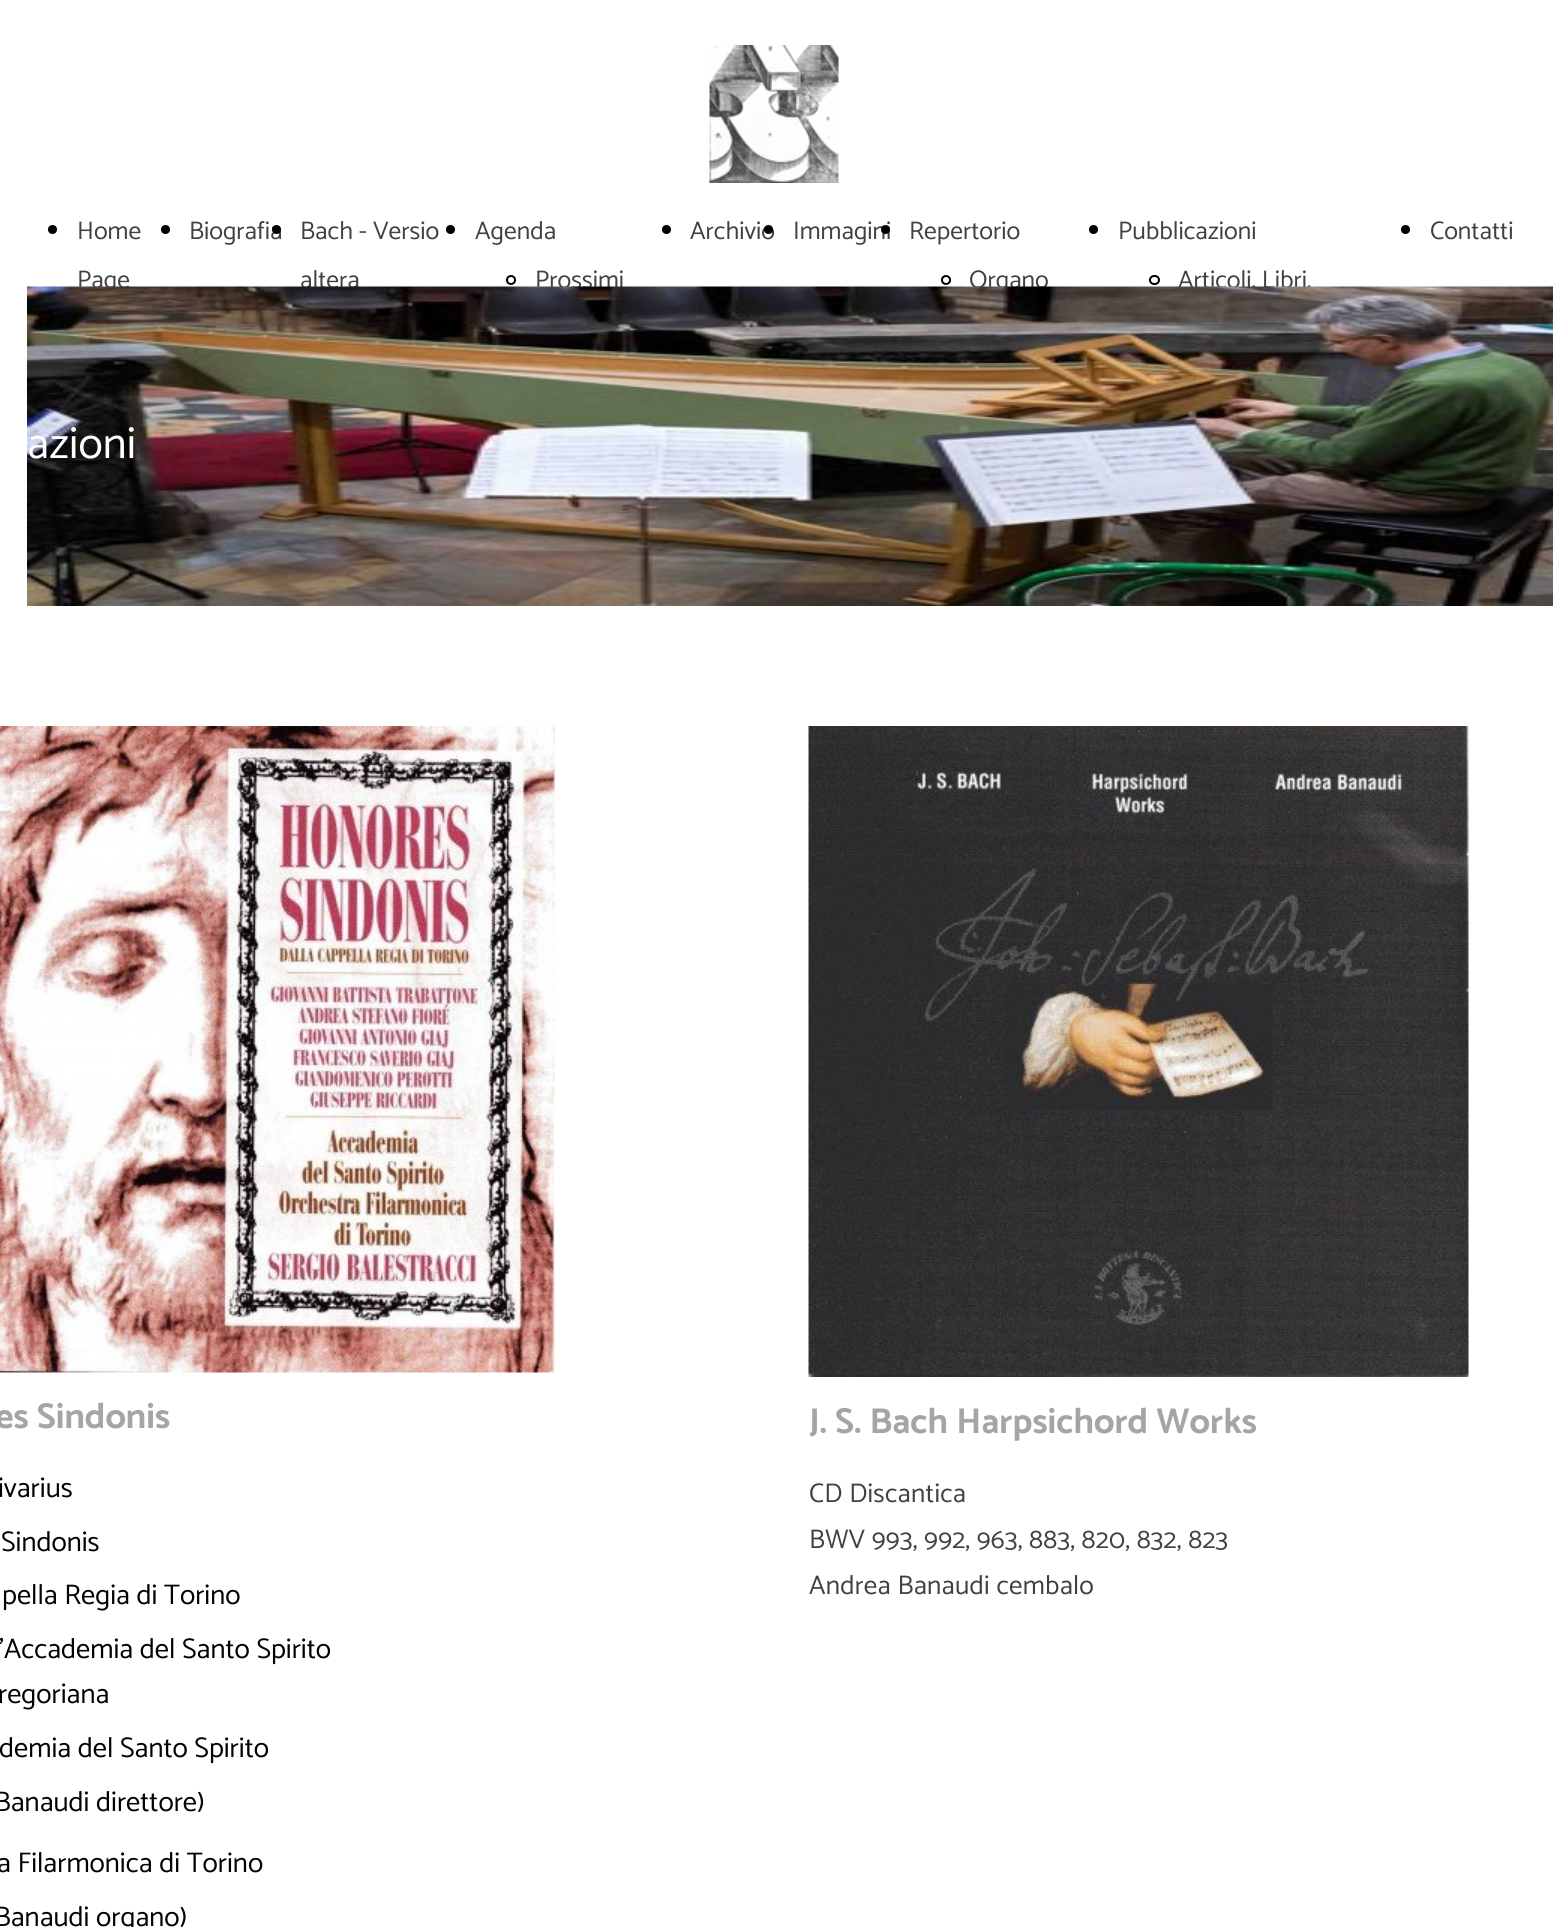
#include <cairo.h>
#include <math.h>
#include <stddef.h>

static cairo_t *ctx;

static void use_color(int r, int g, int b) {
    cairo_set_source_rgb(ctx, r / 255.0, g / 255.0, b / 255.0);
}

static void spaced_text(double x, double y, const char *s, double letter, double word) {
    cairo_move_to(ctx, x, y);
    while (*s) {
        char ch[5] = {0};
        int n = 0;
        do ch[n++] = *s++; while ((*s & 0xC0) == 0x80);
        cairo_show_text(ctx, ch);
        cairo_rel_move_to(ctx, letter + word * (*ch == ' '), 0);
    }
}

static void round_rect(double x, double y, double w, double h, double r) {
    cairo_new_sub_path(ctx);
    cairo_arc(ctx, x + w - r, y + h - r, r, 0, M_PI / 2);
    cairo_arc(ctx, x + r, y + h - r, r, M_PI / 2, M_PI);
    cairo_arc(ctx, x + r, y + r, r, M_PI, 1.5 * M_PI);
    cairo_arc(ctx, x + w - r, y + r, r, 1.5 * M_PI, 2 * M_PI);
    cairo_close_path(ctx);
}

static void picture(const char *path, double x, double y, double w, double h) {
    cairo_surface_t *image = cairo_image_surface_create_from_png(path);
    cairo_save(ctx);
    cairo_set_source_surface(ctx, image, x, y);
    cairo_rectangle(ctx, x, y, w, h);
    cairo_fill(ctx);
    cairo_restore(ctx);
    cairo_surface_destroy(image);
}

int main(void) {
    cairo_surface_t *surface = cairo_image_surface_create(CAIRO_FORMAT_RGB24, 1553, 1927);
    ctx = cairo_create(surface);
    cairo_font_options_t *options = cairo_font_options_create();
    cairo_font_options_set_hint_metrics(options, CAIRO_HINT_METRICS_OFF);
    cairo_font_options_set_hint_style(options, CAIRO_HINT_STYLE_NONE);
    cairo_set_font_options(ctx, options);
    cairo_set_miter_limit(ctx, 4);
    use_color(255, 255, 255);
    cairo_paint(ctx);
    picture("img1.png", 709, 45, 130, 138);
    use_color(0, 0, 0);
    cairo_arc(ctx, 52.5, 229.5, 4.5, 0, 2 * M_PI);
    cairo_fill(ctx);
    cairo_select_font_face(ctx, "Catamaran", CAIRO_FONT_SLANT_NORMAL, CAIRO_FONT_WEIGHT_NORMAL);
    cairo_set_font_size(ctx, 25.5);
    use_color(65, 65, 65);
    cairo_move_to(ctx, 77, 239);
    cairo_show_text(ctx, "Home");
    cairo_move_to(ctx, 77, 288);
    cairo_show_text(ctx, "Page");
    use_color(0, 0, 0);
    cairo_new_path(ctx);
    cairo_arc(ctx, 165.5, 229.5, 4.5, 0, 2 * M_PI);
    cairo_fill(ctx);
    use_color(65, 65, 65);
    cairo_move_to(ctx, 189, 239);
    cairo_show_text(ctx, "Biografia");
    use_color(0, 0, 0);
    cairo_new_path(ctx);
    cairo_arc(ctx, 276.5, 229.5, 4.5, 0, 2 * M_PI);
    cairo_fill(ctx);
    use_color(65, 65, 65);
    cairo_move_to(ctx, 300, 239);
    cairo_show_text(ctx, "Bach - Versio");
    cairo_move_to(ctx, 300, 288);
    cairo_show_text(ctx, "altera");
    use_color(0, 0, 0);
    cairo_new_path(ctx);
    cairo_arc(ctx, 450.5, 229.5, 4.5, 0, 2 * M_PI);
    cairo_fill(ctx);
    use_color(65, 65, 65);
    cairo_move_to(ctx, 475, 239);
    cairo_show_text(ctx, "Agenda");
    cairo_new_path(ctx);
    cairo_arc(ctx, 511, 280, 4, 0, 2 * M_PI);
    use_color(0, 0, 0);
    cairo_stroke(ctx);
    use_color(65, 65, 65);
    cairo_move_to(ctx, 535, 288);
    cairo_show_text(ctx, "Prossimi");
    use_color(0, 0, 0);
    cairo_new_path(ctx);
    cairo_arc(ctx, 666.5, 229.5, 4.5, 0, 2 * M_PI);
    cairo_fill(ctx);
    use_color(65, 65, 65);
    cairo_move_to(ctx, 690, 239);
    cairo_show_text(ctx, "Archivio");
    use_color(0, 0, 0);
    cairo_new_path(ctx);
    cairo_arc(ctx, 768.5, 229.5, 4.5, 0, 2 * M_PI);
    cairo_fill(ctx);
    use_color(65, 65, 65);
    cairo_move_to(ctx, 793, 239);
    cairo_show_text(ctx, "Immagini");
    use_color(0, 0, 0);
    cairo_new_path(ctx);
    cairo_arc(ctx, 885.5, 229.5, 4.5, 0, 2 * M_PI);
    cairo_fill(ctx);
    use_color(65, 65, 65);
    cairo_move_to(ctx, 909, 239);
    cairo_show_text(ctx, "Repertorio");
    cairo_new_path(ctx);
    cairo_arc(ctx, 946, 280, 4, 0, 2 * M_PI);
    use_color(0, 0, 0);
    cairo_stroke(ctx);
    use_color(65, 65, 65);
    cairo_move_to(ctx, 969, 288);
    cairo_show_text(ctx, "Organo");
    use_color(0, 0, 0);
    cairo_new_path(ctx);
    cairo_arc(ctx, 1093.5, 229.5, 4.5, 0, 2 * M_PI);
    cairo_fill(ctx);
    use_color(65, 65, 65);
    cairo_move_to(ctx, 1118, 239);
    cairo_show_text(ctx, "Pubblicazioni");
    round_rect(1150, 276, 9, 8, 4);
    use_color(0, 0, 0);
    cairo_stroke(ctx);
    use_color(65, 65, 65);
    cairo_move_to(ctx, 1178, 288);
    cairo_show_text(ctx, "Articoli, Libri,");
    use_color(0, 0, 0);
    cairo_new_path(ctx);
    cairo_arc(ctx, 1405.5, 229.5, 4.5, 0, 2 * M_PI);
    cairo_fill(ctx);
    use_color(65, 65, 65);
    cairo_move_to(ctx, 1430, 239);
    cairo_show_text(ctx, "Contatti");
    picture("img2.png", 27, 286, 1526, 320);
    cairo_set_font_size(ctx, 45);
    use_color(255, 255, 255);
    spaced_text(27, 458, "azioni", 0.25, 0);
    picture("img3.png", 0, 726, 555, 647);
    picture("img4.png", 808, 726, 661, 651);
    cairo_select_font_face(ctx, "Catamaran", CAIRO_FONT_SLANT_NORMAL, CAIRO_FONT_WEIGHT_BOLD);
    cairo_set_font_size(ctx, 36);
    use_color(165, 165, 165);
    cairo_move_to(ctx, -5, 1428);
    cairo_show_text(ctx, "es Sindonis");
    cairo_move_to(ctx, 809, 1433);
    cairo_show_text(ctx, "J. S. Bach Harpsichord Works");
    cairo_select_font_face(ctx, "Catamaran", CAIRO_FONT_SLANT_NORMAL, CAIRO_FONT_WEIGHT_NORMAL);
    cairo_set_font_size(ctx, 28.4);
    use_color(2, 2, 2);
    cairo_move_to(ctx, -2, 1497);
    cairo_show_text(ctx, "ivarius");
    cairo_move_to(ctx, 1, 1551);
    cairo_show_text(ctx, "Sindonis");
    cairo_move_to(ctx, 2, 1604);
    cairo_show_text(ctx, "pella Regia di Torino");
    cairo_move_to(ctx, -1, 1658);
    cairo_show_text(ctx, "'Accademia del Santo Spirito");
    cairo_move_to(ctx, -2, 1703);
    cairo_show_text(ctx, "regoriana");
    cairo_move_to(ctx, -1, 1757);
    cairo_show_text(ctx, "demia del Santo Spirito");
    cairo_move_to(ctx, -6, 1811);
    cairo_show_text(ctx, "Banaudi direttore)");
    cairo_move_to(ctx, -3, 1872);
    cairo_show_text(ctx, "a Filarmonica di Torino");
    cairo_move_to(ctx, -6, 1926);
    cairo_show_text(ctx, "Banaudi organo)");
    cairo_set_font_size(ctx, 27);
    use_color(65, 65, 65);
    spaced_text(809, 1502, "CD Discantica", 0.25, 0);
    spaced_text(809, 1548, "BWV 993, 992, 963, 883, 820, 832, 823", 0.25, 0);
    spaced_text(809, 1594, "Andrea Banaudi cembalo", 0.25, 0);
    cairo_surface_write_to_png(surface, "result.png");
    cairo_font_options_destroy(options);
    cairo_destroy(ctx);
    cairo_surface_destroy(surface);
    return 0;
}
